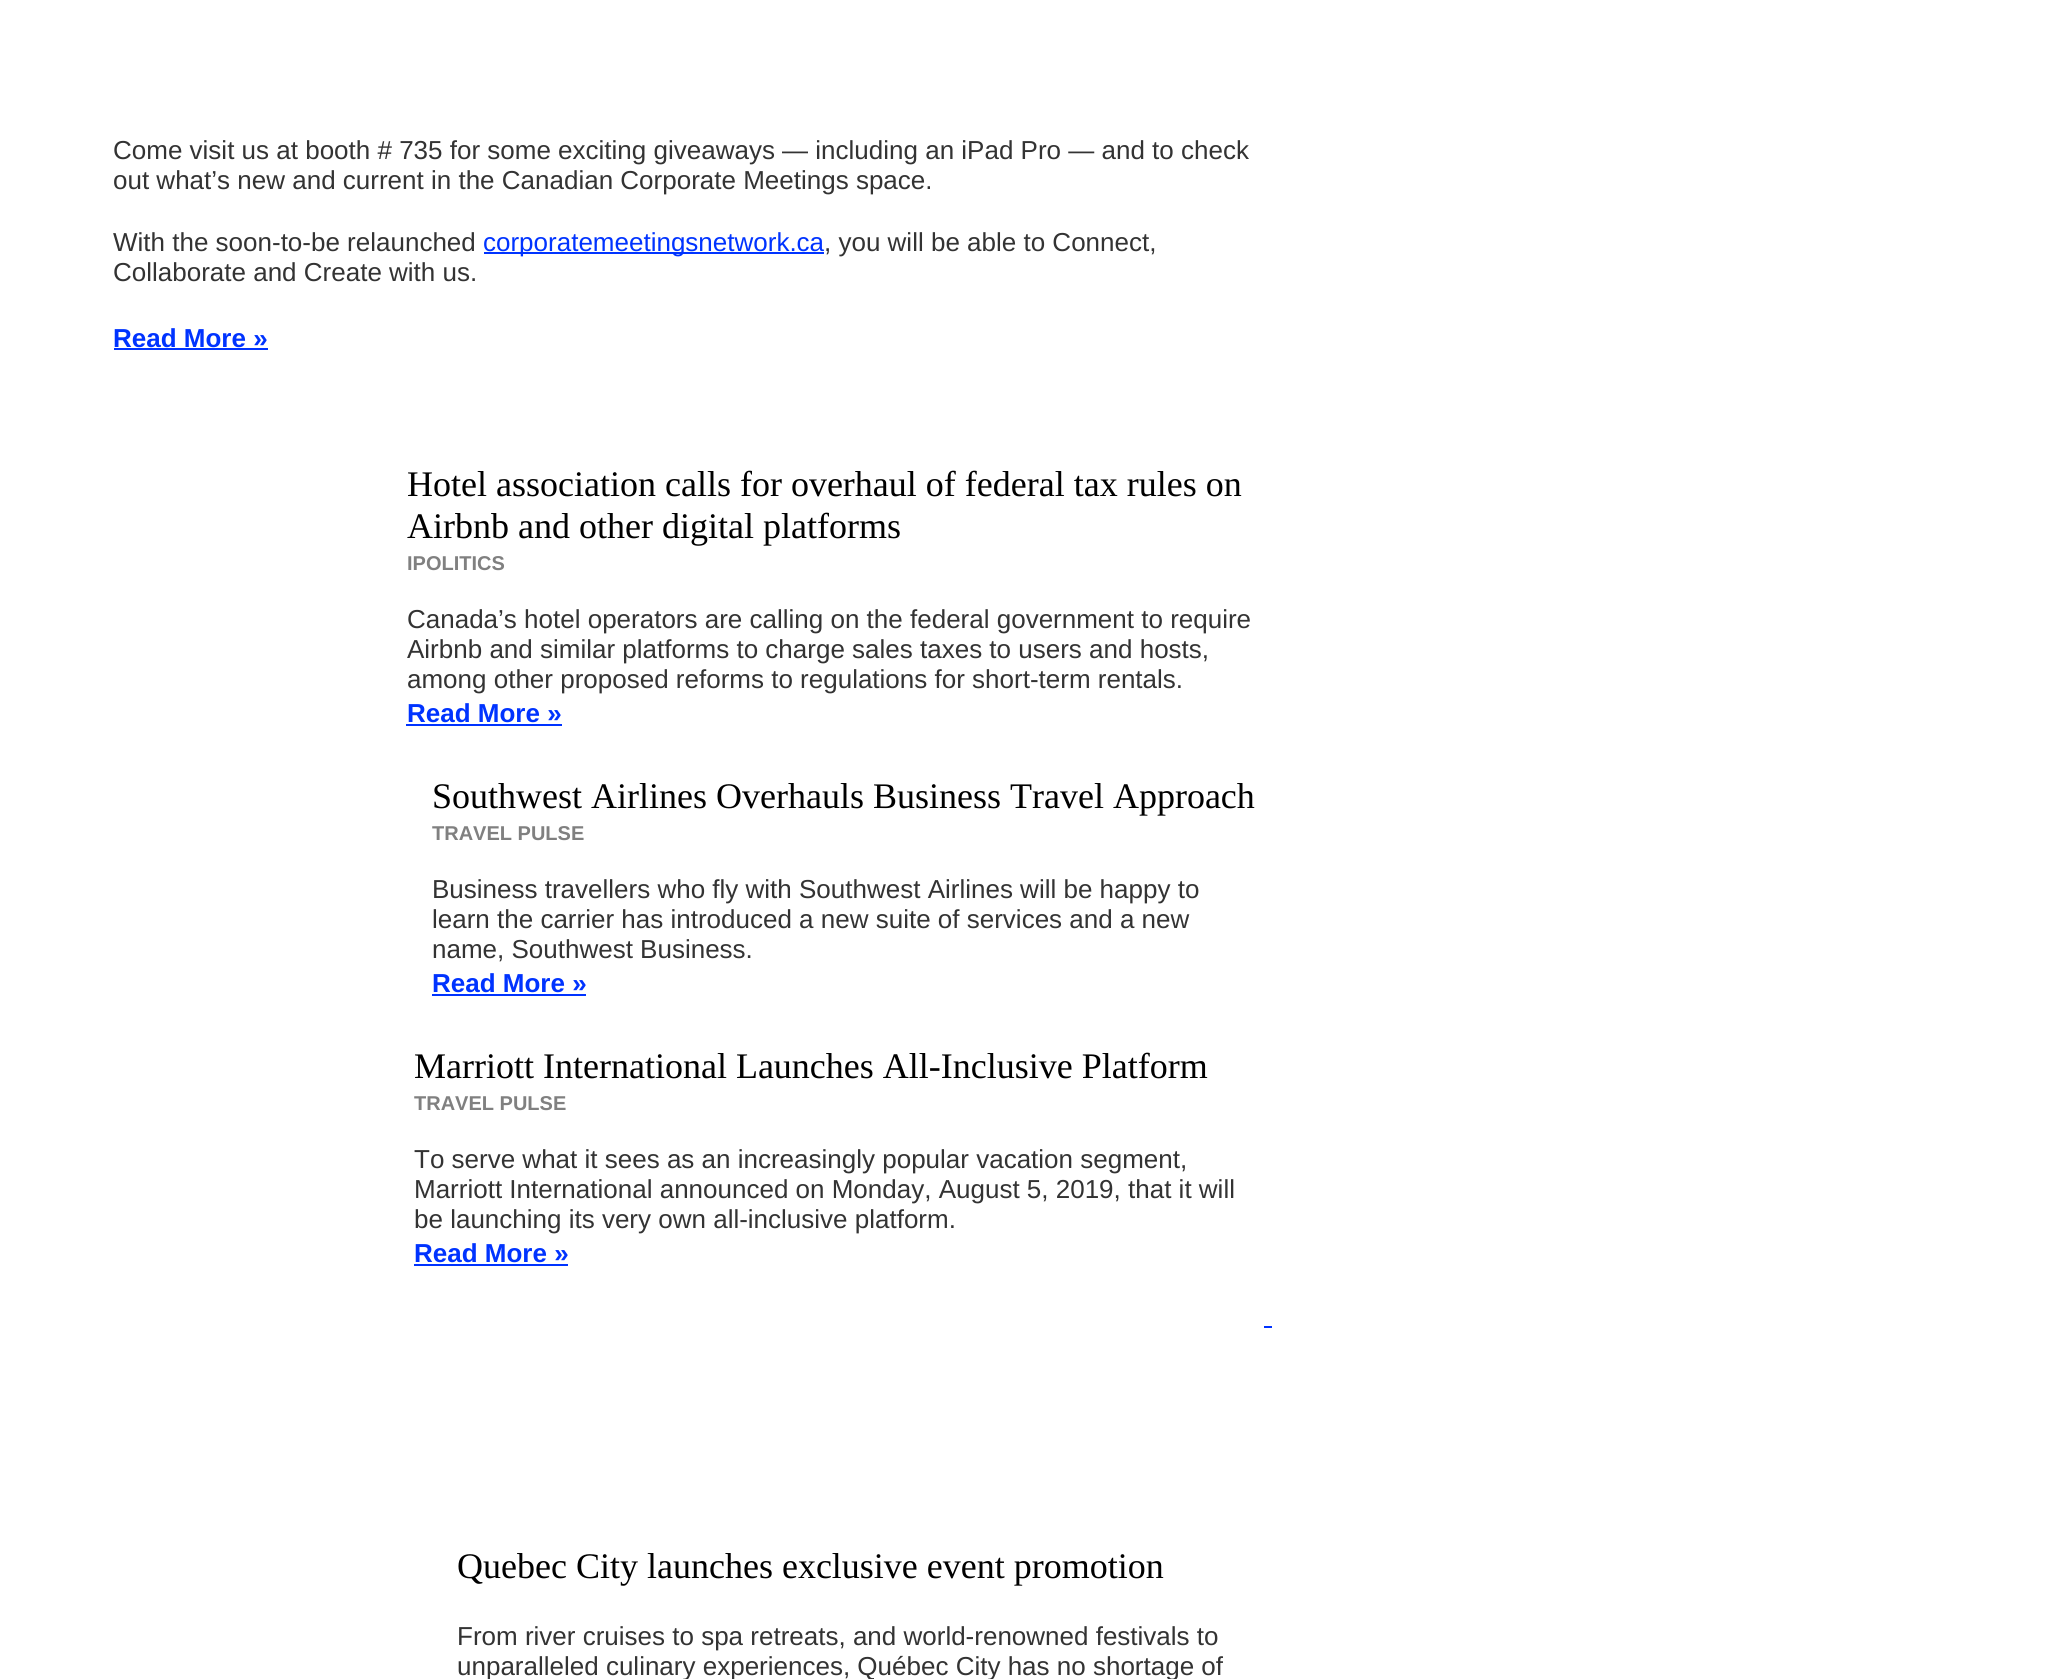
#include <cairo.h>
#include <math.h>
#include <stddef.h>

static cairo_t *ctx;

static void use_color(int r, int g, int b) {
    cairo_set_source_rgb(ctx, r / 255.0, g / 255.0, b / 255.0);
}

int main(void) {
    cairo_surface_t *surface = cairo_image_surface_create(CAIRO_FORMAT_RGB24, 2048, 1679);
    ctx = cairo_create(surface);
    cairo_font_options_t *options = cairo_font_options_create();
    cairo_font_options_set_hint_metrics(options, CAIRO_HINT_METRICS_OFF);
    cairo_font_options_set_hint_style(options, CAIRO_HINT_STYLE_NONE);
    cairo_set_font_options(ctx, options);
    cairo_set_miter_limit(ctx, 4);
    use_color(255, 255, 255);
    cairo_paint(ctx);
    cairo_select_font_face(ctx, "Liberation Sans", CAIRO_FONT_SLANT_NORMAL, CAIRO_FONT_WEIGHT_NORMAL);
    cairo_set_font_size(ctx, 26);
    use_color(51, 51, 51);
    cairo_move_to(ctx, 113, 159);
    cairo_show_text(ctx, "Come visit us at booth # 735 for some exciting giveaways — including an iPad Pro — and to check");
    cairo_move_to(ctx, 113, 189);
    cairo_show_text(ctx, "out what’s new and current in the Canadian Corporate Meetings space.");
    cairo_move_to(ctx, 113, 251);
    cairo_show_text(ctx, "With the soon-to-be relaunched");
    use_color(0, 51, 255);
    cairo_rectangle(ctx, 484, 252, 340, 2);
    cairo_fill(ctx);
    cairo_move_to(ctx, 483, 251);
    cairo_show_text(ctx, "corporatemeetingsnetwork.ca");
    use_color(51, 51, 51);
    cairo_move_to(ctx, 824, 251);
    cairo_show_text(ctx, ", you will be able to Connect,");
    cairo_move_to(ctx, 113, 281);
    cairo_show_text(ctx, "Collaborate and Create with us.");
    cairo_select_font_face(ctx, "Liberation Sans", CAIRO_FONT_SLANT_NORMAL, CAIRO_FONT_WEIGHT_BOLD);
    use_color(0, 51, 255);
    cairo_move_to(ctx, 113, 347);
    cairo_show_text(ctx, "Read More »");
    cairo_rectangle(ctx, 114, 348, 154, 2);
    cairo_fill(ctx);
    cairo_select_font_face(ctx, "Liberation Serif", CAIRO_FONT_SLANT_NORMAL, CAIRO_FONT_WEIGHT_NORMAL);
    cairo_set_font_size(ctx, 36);
    use_color(0, 0, 0);
    cairo_move_to(ctx, 407, 496);
    cairo_show_text(ctx, "Hotel association calls for overhaul of federal tax rules on");
    cairo_move_to(ctx, 407, 538);
    cairo_show_text(ctx, "Airbnb and other digital platforms");
    cairo_select_font_face(ctx, "Liberation Sans", CAIRO_FONT_SLANT_NORMAL, CAIRO_FONT_WEIGHT_BOLD);
    cairo_set_font_size(ctx, 20);
    use_color(128, 128, 128);
    cairo_move_to(ctx, 407, 570);
    cairo_show_text(ctx, "IPOLITICS");
    cairo_select_font_face(ctx, "Liberation Sans", CAIRO_FONT_SLANT_NORMAL, CAIRO_FONT_WEIGHT_NORMAL);
    cairo_set_font_size(ctx, 26);
    use_color(51, 51, 51);
    cairo_move_to(ctx, 407, 628);
    cairo_show_text(ctx, "Canada’s hotel operators are calling on the federal government to require");
    cairo_move_to(ctx, 407, 658);
    cairo_show_text(ctx, "Airbnb and similar platforms to charge sales taxes to users and hosts,");
    cairo_move_to(ctx, 407, 688);
    cairo_show_text(ctx, "among other proposed reforms to regulations for short-term rentals.");
    cairo_select_font_face(ctx, "Liberation Sans", CAIRO_FONT_SLANT_NORMAL, CAIRO_FONT_WEIGHT_BOLD);
    use_color(0, 51, 255);
    cairo_move_to(ctx, 407, 722);
    cairo_show_text(ctx, "Read More »");
    cairo_rectangle(ctx, 406, 724, 156, 2);
    cairo_fill(ctx);
    cairo_select_font_face(ctx, "Liberation Serif", CAIRO_FONT_SLANT_NORMAL, CAIRO_FONT_WEIGHT_NORMAL);
    cairo_set_font_size(ctx, 36);
    use_color(0, 0, 0);
    cairo_move_to(ctx, 432, 808);
    cairo_show_text(ctx, "Southwest Airlines Overhauls Business Travel Approach");
    cairo_select_font_face(ctx, "Liberation Sans", CAIRO_FONT_SLANT_NORMAL, CAIRO_FONT_WEIGHT_BOLD);
    cairo_set_font_size(ctx, 20);
    use_color(128, 128, 128);
    cairo_move_to(ctx, 432, 840);
    cairo_show_text(ctx, "TRAVEL PULSE");
    cairo_select_font_face(ctx, "Liberation Sans", CAIRO_FONT_SLANT_NORMAL, CAIRO_FONT_WEIGHT_NORMAL);
    cairo_set_font_size(ctx, 26);
    use_color(51, 51, 51);
    cairo_move_to(ctx, 432, 898);
    cairo_show_text(ctx, "Business travellers who fly with Southwest Airlines will be happy to");
    cairo_move_to(ctx, 432, 928);
    cairo_show_text(ctx, "learn the carrier has introduced a new suite of services and a new");
    cairo_move_to(ctx, 432, 958);
    cairo_show_text(ctx, "name, Southwest Business.");
    cairo_select_font_face(ctx, "Liberation Sans", CAIRO_FONT_SLANT_NORMAL, CAIRO_FONT_WEIGHT_BOLD);
    use_color(0, 51, 255);
    cairo_move_to(ctx, 432, 992);
    cairo_show_text(ctx, "Read More »");
    cairo_rectangle(ctx, 432, 994, 154, 2);
    cairo_fill(ctx);
    cairo_select_font_face(ctx, "Liberation Serif", CAIRO_FONT_SLANT_NORMAL, CAIRO_FONT_WEIGHT_NORMAL);
    cairo_set_font_size(ctx, 36);
    use_color(0, 0, 0);
    cairo_move_to(ctx, 414, 1078);
    cairo_show_text(ctx, "Marriott International Launches All-Inclusive Platform");
    cairo_select_font_face(ctx, "Liberation Sans", CAIRO_FONT_SLANT_NORMAL, CAIRO_FONT_WEIGHT_BOLD);
    cairo_set_font_size(ctx, 20);
    use_color(128, 128, 128);
    cairo_move_to(ctx, 414, 1110);
    cairo_show_text(ctx, "TRAVEL PULSE");
    cairo_select_font_face(ctx, "Liberation Sans", CAIRO_FONT_SLANT_NORMAL, CAIRO_FONT_WEIGHT_NORMAL);
    cairo_set_font_size(ctx, 26);
    use_color(51, 51, 51);
    cairo_move_to(ctx, 414, 1168);
    cairo_show_text(ctx, "To serve what it sees as an increasingly popular vacation segment,");
    cairo_move_to(ctx, 414, 1198);
    cairo_show_text(ctx, "Marriott International announced on Monday, August 5, 2019, that it will");
    cairo_move_to(ctx, 414, 1228);
    cairo_show_text(ctx, "be launching its very own all-inclusive platform.");
    cairo_select_font_face(ctx, "Liberation Sans", CAIRO_FONT_SLANT_NORMAL, CAIRO_FONT_WEIGHT_BOLD);
    use_color(0, 51, 255);
    cairo_move_to(ctx, 414, 1262);
    cairo_show_text(ctx, "Read More »");
    cairo_rectangle(ctx, 414, 1264, 154, 2);
    cairo_fill(ctx);
    cairo_select_font_face(ctx, "Liberation Serif", CAIRO_FONT_SLANT_NORMAL, CAIRO_FONT_WEIGHT_NORMAL);
    cairo_set_font_size(ctx, 36);
    use_color(0, 0, 0);
    cairo_move_to(ctx, 457, 1578);
    cairo_show_text(ctx, "Quebec City launches exclusive event promotion");
    cairo_select_font_face(ctx, "Liberation Sans", CAIRO_FONT_SLANT_NORMAL, CAIRO_FONT_WEIGHT_NORMAL);
    cairo_set_font_size(ctx, 26);
    use_color(51, 51, 51);
    cairo_move_to(ctx, 457, 1645);
    cairo_show_text(ctx, "From river cruises to spa retreats, and world-renowned festivals to");
    cairo_move_to(ctx, 457, 1675);
    cairo_show_text(ctx, "unparalleled culinary experiences, Québec City has no shortage of");
    use_color(0, 51, 255);
    cairo_rectangle(ctx, 1264, 1326, 8, 2);
    cairo_fill(ctx);
    cairo_surface_write_to_png(surface, "result.png");
    cairo_font_options_destroy(options);
    cairo_destroy(ctx);
    cairo_surface_destroy(surface);
    return 0;
}
